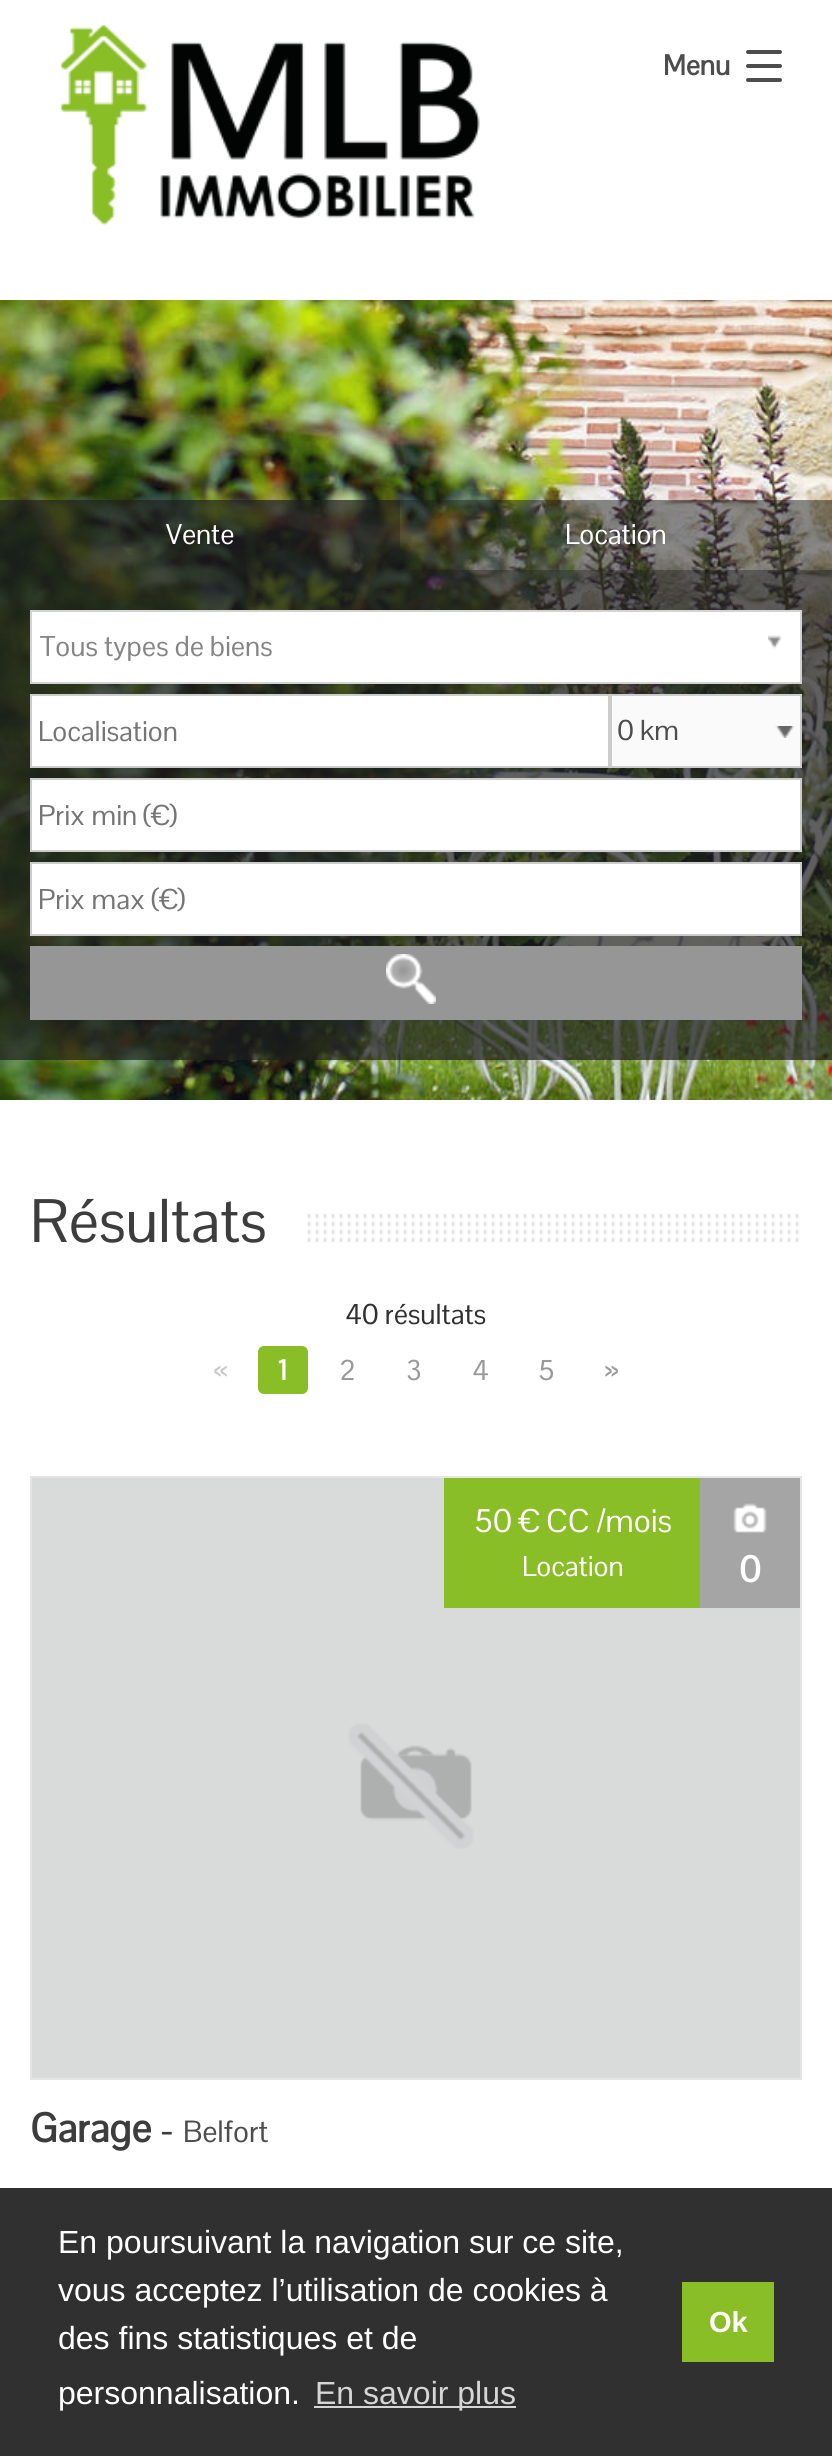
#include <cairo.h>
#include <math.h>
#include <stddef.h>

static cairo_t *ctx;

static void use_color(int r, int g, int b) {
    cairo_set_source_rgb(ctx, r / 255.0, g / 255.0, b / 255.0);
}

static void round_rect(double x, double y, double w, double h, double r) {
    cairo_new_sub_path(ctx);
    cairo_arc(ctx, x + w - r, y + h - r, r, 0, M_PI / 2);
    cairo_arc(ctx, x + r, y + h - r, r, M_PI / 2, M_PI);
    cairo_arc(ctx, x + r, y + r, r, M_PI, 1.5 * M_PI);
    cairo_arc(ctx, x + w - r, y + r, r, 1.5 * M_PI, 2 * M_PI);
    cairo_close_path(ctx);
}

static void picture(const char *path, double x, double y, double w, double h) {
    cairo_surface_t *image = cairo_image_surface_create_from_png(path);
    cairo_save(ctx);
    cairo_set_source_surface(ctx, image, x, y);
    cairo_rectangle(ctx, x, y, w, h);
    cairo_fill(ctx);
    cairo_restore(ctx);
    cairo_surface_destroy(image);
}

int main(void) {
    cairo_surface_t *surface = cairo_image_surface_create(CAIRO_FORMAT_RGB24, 832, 2456);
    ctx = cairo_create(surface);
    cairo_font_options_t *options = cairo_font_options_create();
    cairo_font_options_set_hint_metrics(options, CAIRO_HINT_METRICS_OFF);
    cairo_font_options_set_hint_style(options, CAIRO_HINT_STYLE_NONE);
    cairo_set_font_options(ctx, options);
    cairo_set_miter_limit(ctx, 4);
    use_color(255, 255, 255);
    cairo_paint(ctx);
    picture("img1.png", 60, 25, 420, 201);
    cairo_select_font_face(ctx, "Pontano Sans", CAIRO_FONT_SLANT_NORMAL, CAIRO_FONT_WEIGHT_BOLD);
    cairo_set_font_size(ctx, 28);
    use_color(77, 77, 77);
    cairo_move_to(ctx, 663, 75);
    cairo_show_text(ctx, "Menu");
    round_rect(746, 50, 36, 4, 2);
    cairo_fill(ctx);
    round_rect(746, 64, 36, 4, 2);
    cairo_fill(ctx);
    round_rect(746, 78, 36, 4, 2);
    cairo_fill(ctx);
    picture("img2.png", 0, 300, 832, 800);
    cairo_set_source_rgba(ctx, 0.118, 0.118, 0.118, 0.5);
    cairo_rectangle(ctx, 0, 500, 832, 70);
    cairo_fill(ctx);
    cairo_set_source_rgba(ctx, 0.118, 0.118, 0.118, 0.4);
    cairo_rectangle(ctx, 0, 500, 400, 70);
    cairo_fill(ctx);
    cairo_select_font_face(ctx, "Pontano Sans", CAIRO_FONT_SLANT_NORMAL, CAIRO_FONT_WEIGHT_NORMAL);
    use_color(255, 255, 255);
    cairo_move_to(ctx, 166, 544);
    cairo_show_text(ctx, "Vente");
    cairo_move_to(ctx, 565, 544);
    cairo_show_text(ctx, "Location");
    cairo_set_source_rgba(ctx, 0.118, 0.118, 0.118, 0.7);
    cairo_rectangle(ctx, 0, 570, 832, 490);
    cairo_fill(ctx);
    use_color(255, 255, 255);
    cairo_rectangle(ctx, 31, 611, 770, 72);
    cairo_fill_preserve(ctx);
    use_color(211, 211, 211);
    cairo_stroke(ctx);
    use_color(133, 133, 133);
    cairo_move_to(ctx, 40, 656);
    cairo_show_text(ctx, "Tous types de biens");
    picture("img3.png", 768, 635, 14, 14);
    use_color(255, 255, 255);
    cairo_rectangle(ctx, 31, 695, 578, 72);
    cairo_fill_preserve(ctx);
    use_color(204, 204, 204);
    cairo_stroke(ctx);
    use_color(117, 117, 117);
    cairo_move_to(ctx, 38, 741);
    cairo_show_text(ctx, "Localisation");
    use_color(250, 250, 250);
    cairo_rectangle(ctx, 612, 696, 188, 70);
    cairo_fill(ctx);
    picture("img4.png", 775, 726, 20, 12);
    cairo_rectangle(ctx, 611, 695, 190, 72);
    use_color(204, 204, 204);
    cairo_stroke(ctx);
    use_color(77, 77, 77);
    cairo_move_to(ctx, 617, 740);
    cairo_show_text(ctx, "0 km");
    use_color(255, 255, 255);
    cairo_rectangle(ctx, 31, 779, 770, 72);
    cairo_fill_preserve(ctx);
    use_color(204, 204, 204);
    cairo_stroke(ctx);
    use_color(117, 117, 117);
    cairo_move_to(ctx, 38, 825);
    cairo_show_text(ctx, "Prix min (€)");
    use_color(255, 255, 255);
    cairo_rectangle(ctx, 31, 863, 770, 72);
    cairo_fill_preserve(ctx);
    use_color(204, 204, 204);
    cairo_stroke(ctx);
    use_color(117, 117, 117);
    cairo_move_to(ctx, 38, 909);
    cairo_show_text(ctx, "Prix max (€)");
    use_color(150, 150, 150);
    cairo_rectangle(ctx, 30, 946, 772, 74);
    cairo_fill(ctx);
    picture("img5.png", 386, 954, 50, 50);
    picture("img6.png", 307, 1213, 492, 30);
    cairo_set_font_size(ctx, 60);
    use_color(61, 61, 61);
    cairo_move_to(ctx, 30, 1242);
    cairo_show_text(ctx, "Résultats");
    cairo_set_font_size(ctx, 28);
    use_color(48, 48, 48);
    cairo_move_to(ctx, 345, 1324);
    cairo_show_text(ctx, "40 résultats");
    use_color(201, 201, 201);
    cairo_move_to(ctx, 214, 1380);
    cairo_show_text(ctx, "«");
    use_color(138, 190, 38);
    round_rect(258, 1346, 50, 48, 6);
    cairo_fill(ctx);
    cairo_select_font_face(ctx, "Pontano Sans", CAIRO_FONT_SLANT_NORMAL, CAIRO_FONT_WEIGHT_BOLD);
    use_color(255, 255, 255);
    cairo_move_to(ctx, 277, 1380);
    cairo_show_text(ctx, "1");
    cairo_select_font_face(ctx, "Pontano Sans", CAIRO_FONT_SLANT_NORMAL, CAIRO_FONT_WEIGHT_NORMAL);
    use_color(153, 153, 153);
    cairo_move_to(ctx, 339, 1380);
    cairo_show_text(ctx, "2");
    cairo_move_to(ctx, 406, 1380);
    cairo_show_text(ctx, "3");
    cairo_move_to(ctx, 472, 1380);
    cairo_show_text(ctx, "4");
    cairo_move_to(ctx, 538, 1380);
    cairo_show_text(ctx, "5");
    cairo_move_to(ctx, 605, 1380);
    cairo_show_text(ctx, "»");
    use_color(217, 219, 219);
    cairo_rectangle(ctx, 31, 1477, 770, 602);
    cairo_fill_preserve(ctx);
    use_color(229, 229, 229);
    cairo_stroke(ctx);
    use_color(138, 190, 38);
    cairo_rectangle(ctx, 444, 1478, 256, 130);
    cairo_fill(ctx);
    cairo_set_font_size(ctx, 32);
    use_color(255, 255, 255);
    cairo_move_to(ctx, 474, 1532);
    cairo_show_text(ctx, "50 € CC /mois");
    cairo_set_font_size(ctx, 28);
    cairo_move_to(ctx, 522, 1576);
    cairo_show_text(ctx, "Location");
    use_color(165, 165, 165);
    cairo_rectangle(ctx, 700, 1478, 100, 130);
    cairo_fill(ctx);
    picture("img7.png", 733, 1503, 34, 30);
    cairo_select_font_face(ctx, "Pontano Sans", CAIRO_FONT_SLANT_NORMAL, CAIRO_FONT_WEIGHT_BOLD);
    cairo_set_font_size(ctx, 36);
    use_color(255, 255, 255);
    cairo_move_to(ctx, 739, 1582);
    cairo_show_text(ctx, "0");
    picture("img8.png", 348, 1723, 126, 126);
    cairo_set_font_size(ctx, 40);
    use_color(61, 61, 61);
    cairo_move_to(ctx, 30, 2142);
    cairo_show_text(ctx, "Garage");
    cairo_select_font_face(ctx, "Pontano Sans", CAIRO_FONT_SLANT_NORMAL, CAIRO_FONT_WEIGHT_NORMAL);
    cairo_move_to(ctx, 160, 2142);
    cairo_show_text(ctx, "-");
    cairo_set_font_size(ctx, 30);
    use_color(77, 77, 77);
    cairo_move_to(ctx, 183, 2142);
    cairo_show_text(ctx, "Belfort");
    use_color(48, 48, 48);
    cairo_rectangle(ctx, 0, 2188, 832, 268);
    cairo_fill(ctx);
    cairo_select_font_face(ctx, "Liberation Sans", CAIRO_FONT_SLANT_NORMAL, CAIRO_FONT_WEIGHT_NORMAL);
    cairo_set_font_size(ctx, 32);
    use_color(255, 255, 255);
    cairo_move_to(ctx, 58, 2253);
    cairo_show_text(ctx, "En poursuivant la navigation sur ce site,");
    cairo_move_to(ctx, 58, 2301);
    cairo_show_text(ctx, "vous acceptez l’utilisation de cookies à");
    cairo_move_to(ctx, 58, 2349);
    cairo_show_text(ctx, "des fins statistiques et de");
    cairo_move_to(ctx, 58, 2404);
    cairo_show_text(ctx, "personnalisation.");
    use_color(214, 214, 214);
    cairo_rectangle(ctx, 314, 2406, 202, 2);
    cairo_fill(ctx);
    cairo_move_to(ctx, 315, 2404);
    cairo_show_text(ctx, "En savoir plus");
    use_color(138, 190, 38);
    cairo_rectangle(ctx, 682, 2282, 92, 80);
    cairo_fill(ctx);
    cairo_select_font_face(ctx, "Liberation Sans", CAIRO_FONT_SLANT_NORMAL, CAIRO_FONT_WEIGHT_BOLD);
    cairo_set_font_size(ctx, 29);
    use_color(255, 255, 255);
    cairo_move_to(ctx, 709, 2332);
    cairo_show_text(ctx, "Ok");
    cairo_surface_write_to_png(surface, "result.png");
    cairo_font_options_destroy(options);
    cairo_destroy(ctx);
    cairo_surface_destroy(surface);
    return 0;
}
